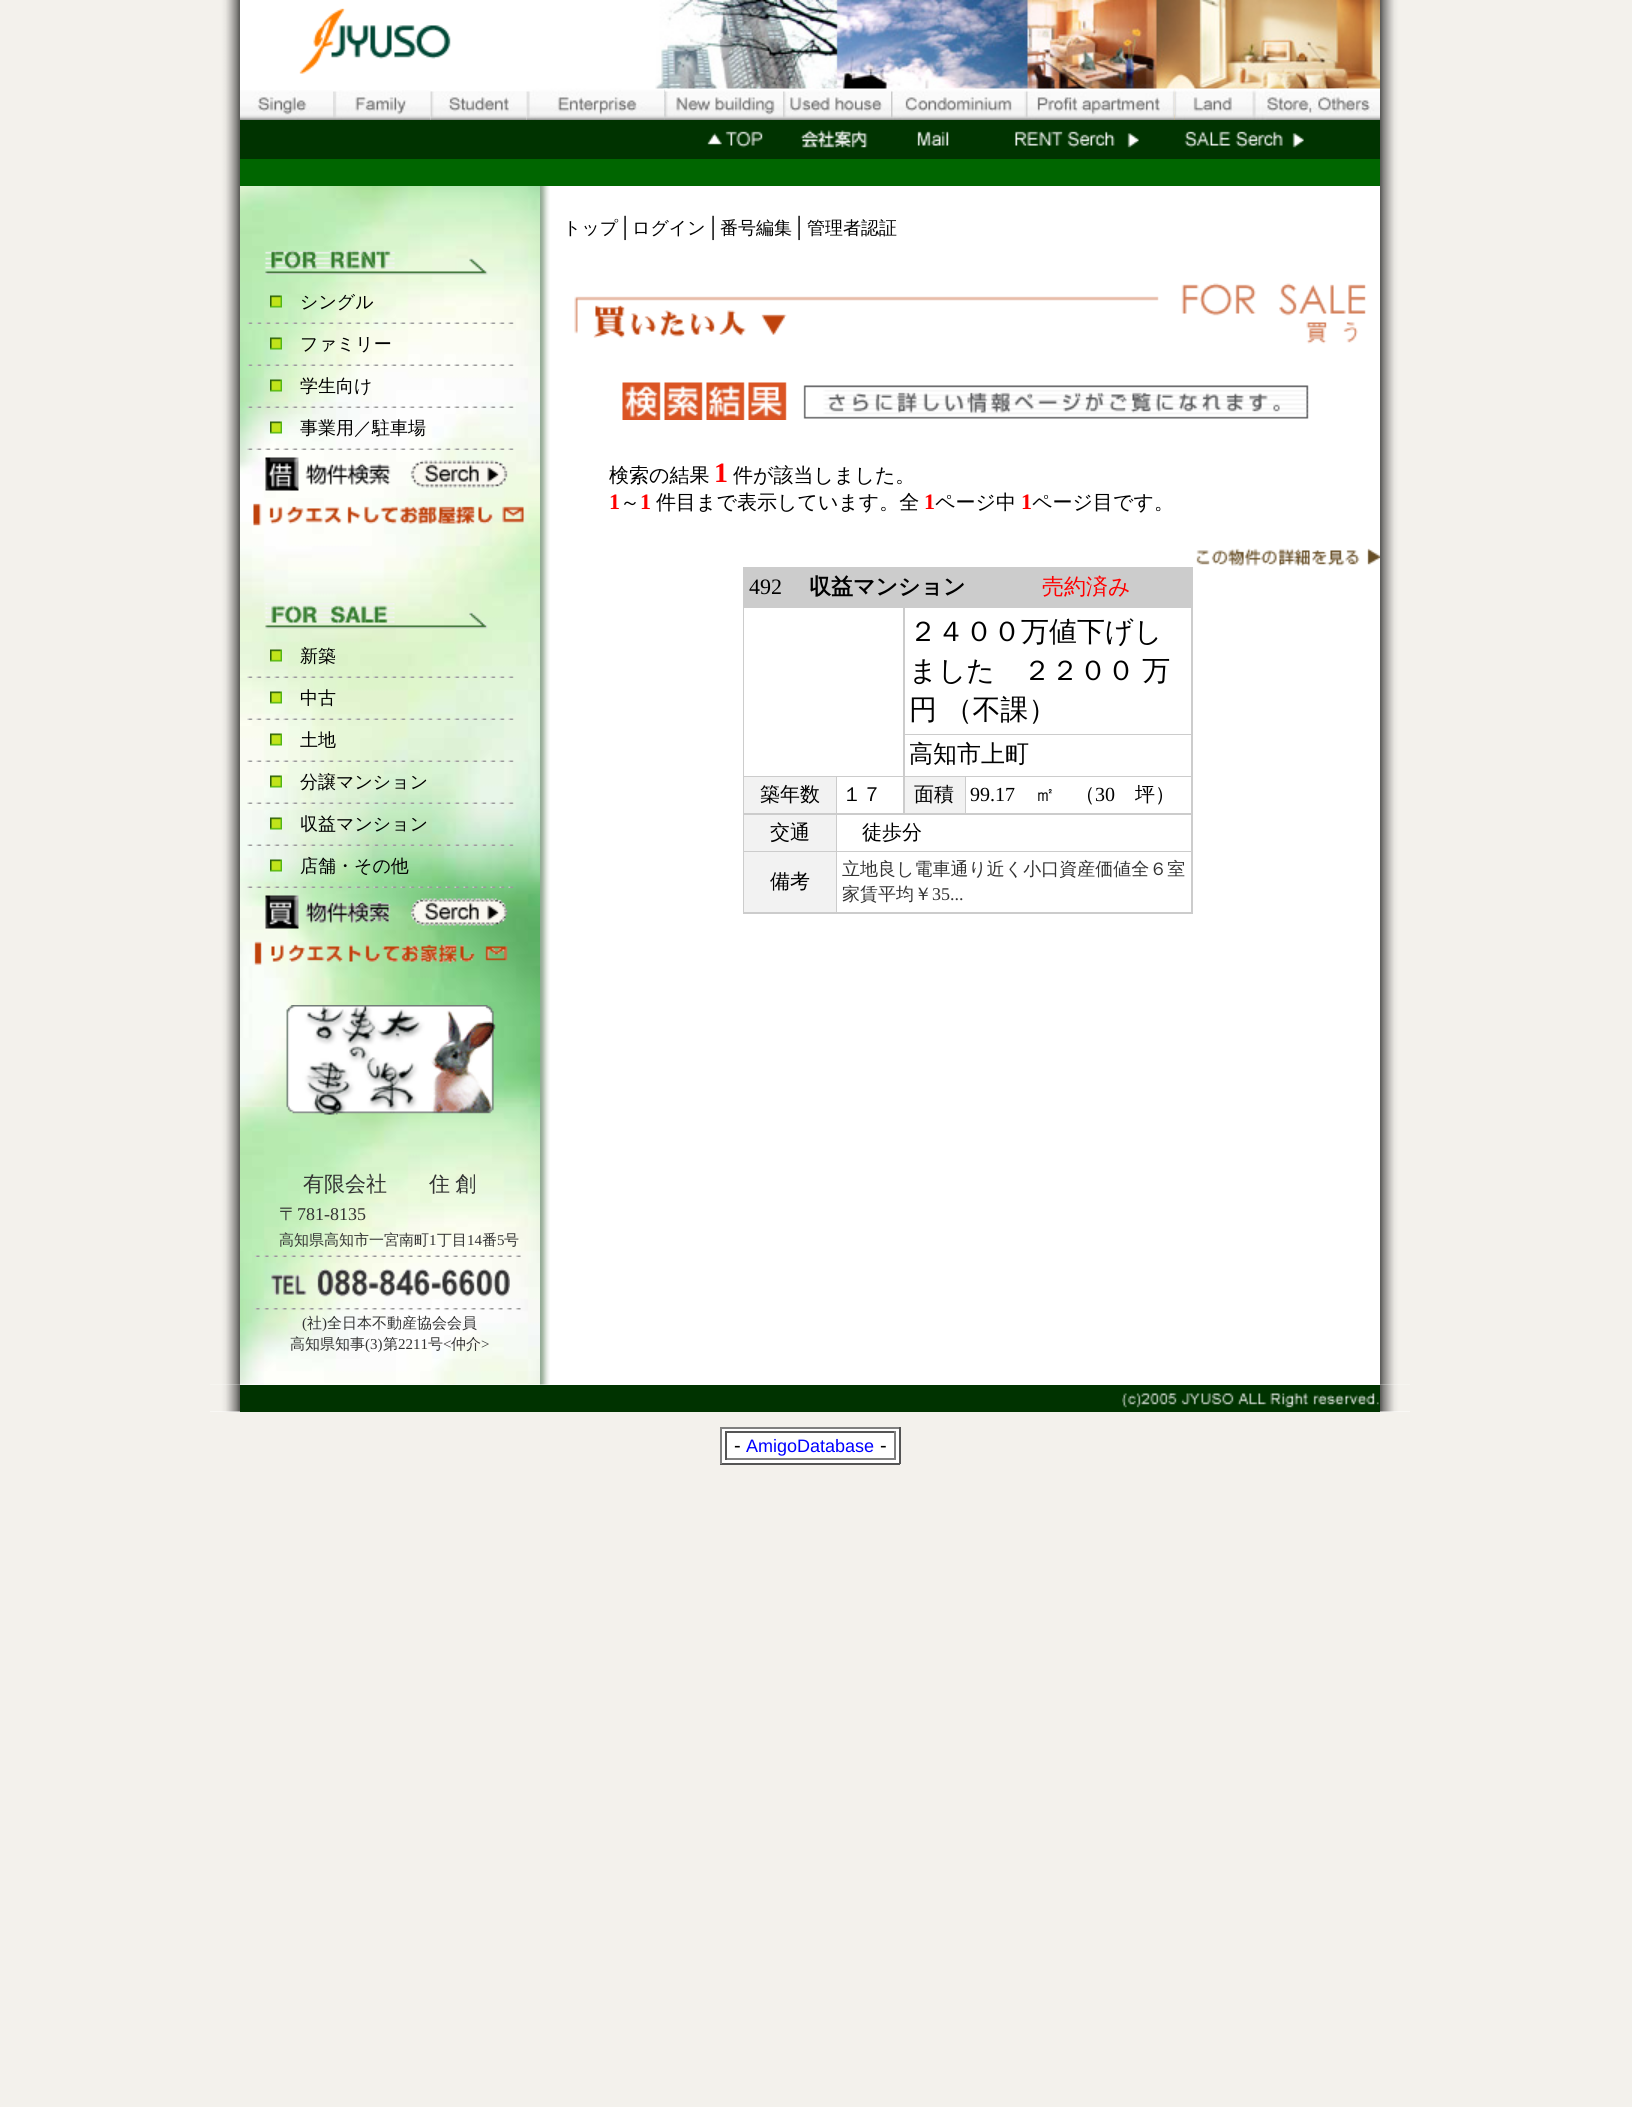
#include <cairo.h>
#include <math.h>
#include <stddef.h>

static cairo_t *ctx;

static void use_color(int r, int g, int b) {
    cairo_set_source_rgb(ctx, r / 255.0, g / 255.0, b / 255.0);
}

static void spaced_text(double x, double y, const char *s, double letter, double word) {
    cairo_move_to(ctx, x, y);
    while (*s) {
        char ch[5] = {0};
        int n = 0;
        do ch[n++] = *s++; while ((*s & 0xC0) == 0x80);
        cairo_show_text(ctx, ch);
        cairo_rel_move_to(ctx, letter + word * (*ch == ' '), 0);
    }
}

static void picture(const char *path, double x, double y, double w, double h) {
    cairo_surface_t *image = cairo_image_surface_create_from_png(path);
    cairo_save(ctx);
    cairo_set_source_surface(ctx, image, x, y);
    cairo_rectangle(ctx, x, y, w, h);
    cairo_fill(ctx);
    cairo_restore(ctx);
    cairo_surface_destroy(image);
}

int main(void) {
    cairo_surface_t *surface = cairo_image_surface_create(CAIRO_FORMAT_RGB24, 1632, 2107);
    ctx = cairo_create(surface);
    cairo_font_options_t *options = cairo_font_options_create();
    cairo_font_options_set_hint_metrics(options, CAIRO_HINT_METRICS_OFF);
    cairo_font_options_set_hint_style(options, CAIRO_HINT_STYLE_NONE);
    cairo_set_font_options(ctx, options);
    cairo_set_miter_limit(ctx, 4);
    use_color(243, 241, 236);
    cairo_paint(ctx);
    use_color(255, 255, 255);
    cairo_rectangle(ctx, 240, 0, 415, 120);
    cairo_fill(ctx);
    picture("img1.png", 210, 0, 30, 159);
    picture("img2.png", 655, 0, 725, 120);
    picture("img3.png", 299, 8, 152, 66);
    picture("img4.png", 240, 90, 93, 30);
    picture("img5.png", 333, 90, 98, 30);
    picture("img6.png", 430, 91, 97, 29);
    picture("img7.png", 526, 88, 139, 32);
    picture("img8.png", 664, 88, 119, 32);
    picture("img9.png", 783, 88, 108, 32);
    picture("img10.png", 891, 88, 135, 32);
    picture("img11.png", 1026, 88, 149, 32);
    picture("img12.png", 1174, 88, 80, 32);
    picture("img13.png", 1254, 88, 126, 32);
    picture("img14.png", 1380, 0, 30, 159);
    use_color(0, 51, 0);
    cairo_rectangle(ctx, 240, 120, 1140, 39);
    cairo_fill(ctx);
    picture("img15.png", 707, 131, 56, 17);
    picture("img16.png", 800, 130, 68, 18);
    picture("img17.png", 917, 131, 32, 15);
    picture("img18.png", 1015, 131, 124, 17);
    picture("img19.png", 1184, 131, 120, 17);
    use_color(255, 255, 255);
    cairo_rectangle(ctx, 210, 186, 1200, 1226);
    cairo_fill(ctx);
    picture("img20.png", 210, 159, 30, 27);
    use_color(0, 102, 0);
    cairo_rectangle(ctx, 240, 159, 1140, 27);
    cairo_fill(ctx);
    picture("img21.png", 1380, 159, 30, 27);
    picture("img22.png", 210, 186, 30, 1199);
    picture("img23.png", 240, 186, 300, 1199);
    picture("img24.png", 265, 250, 223, 25);
    picture("img25.png", 270, 295, 12, 13);
    cairo_select_font_face(ctx, "WenQuanYi Zen Hei Medium", CAIRO_FONT_SLANT_NORMAL, CAIRO_FONT_WEIGHT_NORMAL);
    cairo_set_font_size(ctx, 18);
    use_color(0, 0, 0);
    cairo_move_to(ctx, 300, 308);
    cairo_show_text(ctx, "シングル");
    picture("img26.png", 247, 322, 267, 2);
    picture("img27.png", 270, 337, 12, 13);
    cairo_move_to(ctx, 300, 350);
    cairo_show_text(ctx, "ファミリー");
    picture("img28.png", 247, 364, 267, 2);
    picture("img29.png", 270, 379, 12, 13);
    cairo_move_to(ctx, 300, 392);
    cairo_show_text(ctx, "学生向け");
    picture("img30.png", 247, 406, 267, 2);
    picture("img31.png", 270, 421, 12, 13);
    cairo_move_to(ctx, 300, 434);
    cairo_show_text(ctx, "事業用／駐車場");
    picture("img32.png", 247, 448, 267, 2);
    picture("img33.png", 265, 457, 243, 34);
    picture("img34.png", 253, 503, 271, 23);
    picture("img35.png", 265, 603, 223, 26);
    picture("img36.png", 270, 649, 12, 13);
    cairo_move_to(ctx, 300, 662);
    cairo_show_text(ctx, "新築");
    picture("img37.png", 247, 676, 267, 2);
    picture("img38.png", 270, 691, 12, 13);
    cairo_move_to(ctx, 300, 704);
    cairo_show_text(ctx, "中古");
    picture("img39.png", 247, 718, 267, 2);
    picture("img40.png", 270, 733, 12, 13);
    cairo_move_to(ctx, 300, 746);
    cairo_show_text(ctx, "土地");
    picture("img41.png", 247, 760, 267, 2);
    picture("img42.png", 270, 775, 12, 13);
    cairo_move_to(ctx, 300, 788);
    cairo_show_text(ctx, "分譲マンション");
    picture("img43.png", 247, 802, 267, 2);
    picture("img44.png", 270, 817, 12, 13);
    cairo_move_to(ctx, 300, 830);
    cairo_show_text(ctx, "収益マンション");
    picture("img45.png", 247, 844, 267, 2);
    picture("img46.png", 270, 859, 12, 13);
    cairo_move_to(ctx, 300, 872);
    cairo_show_text(ctx, "店舗・その他");
    picture("img47.png", 247, 886, 267, 2);
    picture("img48.png", 265, 895, 243, 34);
    picture("img49.png", 254, 941, 254, 24);
    picture("img50.png", 286, 1005, 210, 110);
    cairo_set_font_size(ctx, 21);
    use_color(51, 51, 51);
    spaced_text(303, 1191, "有限会社　　住 創", 0, -1);
    cairo_set_font_size(ctx, 18);
    cairo_move_to(ctx, 279, 1220);
    cairo_show_text(ctx, "〒");
    cairo_select_font_face(ctx, "Liberation Serif", CAIRO_FONT_SLANT_NORMAL, CAIRO_FONT_WEIGHT_NORMAL);
    cairo_move_to(ctx, 297, 1220);
    cairo_show_text(ctx, "781-8135");
    cairo_select_font_face(ctx, "WenQuanYi Zen Hei Medium", CAIRO_FONT_SLANT_NORMAL, CAIRO_FONT_WEIGHT_NORMAL);
    cairo_set_font_size(ctx, 15);
    cairo_move_to(ctx, 279, 1245);
    cairo_show_text(ctx, "高知県高知市一宮南町");
    cairo_select_font_face(ctx, "Liberation Serif", CAIRO_FONT_SLANT_NORMAL, CAIRO_FONT_WEIGHT_NORMAL);
    cairo_move_to(ctx, 429, 1245);
    cairo_show_text(ctx, "1");
    cairo_select_font_face(ctx, "WenQuanYi Zen Hei Medium", CAIRO_FONT_SLANT_NORMAL, CAIRO_FONT_WEIGHT_NORMAL);
    cairo_move_to(ctx, 437, 1245);
    cairo_show_text(ctx, "丁目");
    cairo_select_font_face(ctx, "Liberation Serif", CAIRO_FONT_SLANT_NORMAL, CAIRO_FONT_WEIGHT_NORMAL);
    cairo_move_to(ctx, 467, 1245);
    cairo_show_text(ctx, "14");
    cairo_select_font_face(ctx, "WenQuanYi Zen Hei Medium", CAIRO_FONT_SLANT_NORMAL, CAIRO_FONT_WEIGHT_NORMAL);
    cairo_move_to(ctx, 482, 1245);
    cairo_show_text(ctx, "番");
    cairo_select_font_face(ctx, "Liberation Serif", CAIRO_FONT_SLANT_NORMAL, CAIRO_FONT_WEIGHT_NORMAL);
    cairo_move_to(ctx, 497, 1245);
    cairo_show_text(ctx, "5");
    cairo_select_font_face(ctx, "WenQuanYi Zen Hei Medium", CAIRO_FONT_SLANT_NORMAL, CAIRO_FONT_WEIGHT_NORMAL);
    cairo_move_to(ctx, 504, 1245);
    cairo_show_text(ctx, "号");
    picture("img51.png", 255, 1255, 266, 2);
    picture("img52.png", 271, 1268, 239, 29);
    picture("img53.png", 255, 1308, 266, 2);
    cairo_select_font_face(ctx, "Liberation Serif", CAIRO_FONT_SLANT_NORMAL, CAIRO_FONT_WEIGHT_NORMAL);
    cairo_move_to(ctx, 302, 1328);
    cairo_show_text(ctx, "(");
    cairo_select_font_face(ctx, "WenQuanYi Zen Hei Medium", CAIRO_FONT_SLANT_NORMAL, CAIRO_FONT_WEIGHT_NORMAL);
    cairo_move_to(ctx, 307, 1328);
    cairo_show_text(ctx, "社");
    cairo_select_font_face(ctx, "Liberation Serif", CAIRO_FONT_SLANT_NORMAL, CAIRO_FONT_WEIGHT_NORMAL);
    cairo_move_to(ctx, 322, 1328);
    cairo_show_text(ctx, ")");
    cairo_select_font_face(ctx, "WenQuanYi Zen Hei Medium", CAIRO_FONT_SLANT_NORMAL, CAIRO_FONT_WEIGHT_NORMAL);
    cairo_move_to(ctx, 327, 1328);
    cairo_show_text(ctx, "全日本不動産協会会員");
    cairo_move_to(ctx, 290, 1349);
    cairo_show_text(ctx, "高知県知事");
    cairo_select_font_face(ctx, "Liberation Serif", CAIRO_FONT_SLANT_NORMAL, CAIRO_FONT_WEIGHT_NORMAL);
    cairo_move_to(ctx, 365, 1349);
    cairo_show_text(ctx, "(3)");
    cairo_select_font_face(ctx, "WenQuanYi Zen Hei Medium", CAIRO_FONT_SLANT_NORMAL, CAIRO_FONT_WEIGHT_NORMAL);
    cairo_move_to(ctx, 383, 1349);
    cairo_show_text(ctx, "第");
    cairo_select_font_face(ctx, "Liberation Serif", CAIRO_FONT_SLANT_NORMAL, CAIRO_FONT_WEIGHT_NORMAL);
    cairo_move_to(ctx, 398, 1349);
    cairo_show_text(ctx, "2211");
    cairo_select_font_face(ctx, "WenQuanYi Zen Hei Medium", CAIRO_FONT_SLANT_NORMAL, CAIRO_FONT_WEIGHT_NORMAL);
    cairo_move_to(ctx, 428, 1349);
    cairo_show_text(ctx, "号");
    cairo_select_font_face(ctx, "Liberation Serif", CAIRO_FONT_SLANT_NORMAL, CAIRO_FONT_WEIGHT_NORMAL);
    cairo_move_to(ctx, 443, 1349);
    cairo_show_text(ctx, "<");
    cairo_select_font_face(ctx, "WenQuanYi Zen Hei Medium", CAIRO_FONT_SLANT_NORMAL, CAIRO_FONT_WEIGHT_NORMAL);
    cairo_move_to(ctx, 451, 1349);
    cairo_show_text(ctx, "仲介");
    cairo_select_font_face(ctx, "Liberation Serif", CAIRO_FONT_SLANT_NORMAL, CAIRO_FONT_WEIGHT_NORMAL);
    cairo_move_to(ctx, 481, 1349);
    cairo_show_text(ctx, ">");
    picture("img54.png", 540, 186, 10, 1199);
    cairo_select_font_face(ctx, "WenQuanYi Zen Hei Medium", CAIRO_FONT_SLANT_NORMAL, CAIRO_FONT_WEIGHT_NORMAL);
    cairo_set_font_size(ctx, 18);
    use_color(0, 0, 0);
    cairo_move_to(ctx, 563, 234);
    cairo_show_text(ctx, "トップ");
    cairo_select_font_face(ctx, "Liberation Serif", CAIRO_FONT_SLANT_NORMAL, CAIRO_FONT_WEIGHT_NORMAL);
    cairo_set_font_size(ctx, 20);
    cairo_move_to(ctx, 618, 234);
    cairo_show_text(ctx, "│");
    cairo_select_font_face(ctx, "WenQuanYi Zen Hei Medium", CAIRO_FONT_SLANT_NORMAL, CAIRO_FONT_WEIGHT_NORMAL);
    cairo_set_font_size(ctx, 18);
    cairo_move_to(ctx, 632, 234);
    cairo_show_text(ctx, "ログイン");
    cairo_select_font_face(ctx, "Liberation Serif", CAIRO_FONT_SLANT_NORMAL, CAIRO_FONT_WEIGHT_NORMAL);
    cairo_set_font_size(ctx, 20);
    cairo_move_to(ctx, 706, 234);
    cairo_show_text(ctx, "│");
    cairo_select_font_face(ctx, "WenQuanYi Zen Hei Medium", CAIRO_FONT_SLANT_NORMAL, CAIRO_FONT_WEIGHT_NORMAL);
    cairo_set_font_size(ctx, 18);
    cairo_move_to(ctx, 720, 234);
    cairo_show_text(ctx, "番号編集");
    cairo_select_font_face(ctx, "Liberation Serif", CAIRO_FONT_SLANT_NORMAL, CAIRO_FONT_WEIGHT_NORMAL);
    cairo_set_font_size(ctx, 20);
    cairo_move_to(ctx, 792, 234);
    cairo_show_text(ctx, "│");
    cairo_select_font_face(ctx, "WenQuanYi Zen Hei Medium", CAIRO_FONT_SLANT_NORMAL, CAIRO_FONT_WEIGHT_NORMAL);
    cairo_set_font_size(ctx, 18);
    cairo_move_to(ctx, 807, 234);
    cairo_show_text(ctx, "管理者認証");
    picture("img55.png", 574, 283, 792, 61);
    picture("img56.png", 622, 382, 687, 38);
    cairo_set_font_size(ctx, 20);
    cairo_move_to(ctx, 609, 482);
    cairo_show_text(ctx, "検索の結果");
    cairo_select_font_face(ctx, "Liberation Serif", CAIRO_FONT_SLANT_NORMAL, CAIRO_FONT_WEIGHT_BOLD);
    cairo_set_font_size(ctx, 28);
    use_color(255, 0, 0);
    cairo_move_to(ctx, 714, 482);
    cairo_show_text(ctx, "1");
    cairo_select_font_face(ctx, "WenQuanYi Zen Hei Medium", CAIRO_FONT_SLANT_NORMAL, CAIRO_FONT_WEIGHT_NORMAL);
    cairo_set_font_size(ctx, 20);
    use_color(0, 0, 0);
    cairo_move_to(ctx, 733, 482);
    cairo_show_text(ctx, "件が該当しました。");
    cairo_select_font_face(ctx, "Liberation Serif", CAIRO_FONT_SLANT_NORMAL, CAIRO_FONT_WEIGHT_BOLD);
    cairo_set_font_size(ctx, 22);
    use_color(255, 0, 0);
    cairo_move_to(ctx, 609, 509);
    cairo_show_text(ctx, "1");
    cairo_select_font_face(ctx, "WenQuanYi Zen Hei Medium", CAIRO_FONT_SLANT_NORMAL, CAIRO_FONT_WEIGHT_NORMAL);
    cairo_set_font_size(ctx, 20);
    use_color(0, 0, 0);
    cairo_move_to(ctx, 620, 509);
    cairo_show_text(ctx, "～");
    cairo_select_font_face(ctx, "Liberation Serif", CAIRO_FONT_SLANT_NORMAL, CAIRO_FONT_WEIGHT_BOLD);
    cairo_set_font_size(ctx, 22);
    use_color(255, 0, 0);
    cairo_move_to(ctx, 640, 509);
    cairo_show_text(ctx, "1");
    cairo_select_font_face(ctx, "WenQuanYi Zen Hei Medium", CAIRO_FONT_SLANT_NORMAL, CAIRO_FONT_WEIGHT_NORMAL);
    cairo_set_font_size(ctx, 20);
    use_color(0, 0, 0);
    cairo_move_to(ctx, 656, 509);
    cairo_show_text(ctx, "件目まで表示しています。全");
    cairo_select_font_face(ctx, "Liberation Serif", CAIRO_FONT_SLANT_NORMAL, CAIRO_FONT_WEIGHT_BOLD);
    cairo_set_font_size(ctx, 22);
    use_color(255, 0, 0);
    cairo_move_to(ctx, 924, 509);
    cairo_show_text(ctx, "1");
    cairo_select_font_face(ctx, "WenQuanYi Zen Hei Medium", CAIRO_FONT_SLANT_NORMAL, CAIRO_FONT_WEIGHT_NORMAL);
    cairo_set_font_size(ctx, 20);
    use_color(0, 0, 0);
    cairo_move_to(ctx, 935, 509);
    cairo_show_text(ctx, "ページ中");
    cairo_select_font_face(ctx, "Liberation Serif", CAIRO_FONT_SLANT_NORMAL, CAIRO_FONT_WEIGHT_BOLD);
    cairo_set_font_size(ctx, 22);
    use_color(255, 0, 0);
    cairo_move_to(ctx, 1021, 509);
    cairo_show_text(ctx, "1");
    cairo_select_font_face(ctx, "WenQuanYi Zen Hei Medium", CAIRO_FONT_SLANT_NORMAL, CAIRO_FONT_WEIGHT_NORMAL);
    cairo_set_font_size(ctx, 20);
    use_color(0, 0, 0);
    cairo_move_to(ctx, 1032, 509);
    cairo_show_text(ctx, "ページ目です。");
    picture("img57.png", 1196, 548, 184, 18);
    use_color(204, 204, 204);
    cairo_rectangle(ctx, 743, 567, 450, 347);
    cairo_fill(ctx);
    cairo_select_font_face(ctx, "Liberation Serif", CAIRO_FONT_SLANT_NORMAL, CAIRO_FONT_WEIGHT_NORMAL);
    cairo_set_font_size(ctx, 22);
    use_color(0, 0, 0);
    cairo_move_to(ctx, 749, 594);
    cairo_show_text(ctx, "492");
    cairo_select_font_face(ctx, "WenQuanYi Zen Hei", CAIRO_FONT_SLANT_NORMAL, CAIRO_FONT_WEIGHT_BOLD);
    cairo_move_to(ctx, 809, 594);
    cairo_show_text(ctx, "収益マンション");
    cairo_select_font_face(ctx, "WenQuanYi Zen Hei Medium", CAIRO_FONT_SLANT_NORMAL, CAIRO_FONT_WEIGHT_NORMAL);
    use_color(255, 0, 0);
    cairo_move_to(ctx, 1042, 594);
    cairo_show_text(ctx, "売約済み");
    use_color(255, 255, 255);
    cairo_rectangle(ctx, 744, 608, 159, 168);
    cairo_fill(ctx);
    cairo_rectangle(ctx, 905, 608, 286, 126);
    cairo_fill(ctx);
    cairo_set_font_size(ctx, 28);
    use_color(0, 0, 0);
    cairo_move_to(ctx, 909, 641);
    cairo_show_text(ctx, "２４００万値下げし");
    spaced_text(909, 680, "ました　２２００ 万", 0, -1);
    spaced_text(909, 719, "円 （不課）", 0, -1);
    use_color(255, 255, 255);
    cairo_rectangle(ctx, 905, 735, 286, 41);
    cairo_fill(ctx);
    cairo_set_font_size(ctx, 24);
    use_color(0, 0, 0);
    cairo_move_to(ctx, 909, 762);
    cairo_show_text(ctx, "高知市上町");
    use_color(242, 242, 242);
    cairo_rectangle(ctx, 744, 777, 92, 36);
    cairo_fill(ctx);
    cairo_set_font_size(ctx, 20);
    use_color(0, 0, 0);
    cairo_move_to(ctx, 760, 801);
    cairo_show_text(ctx, "築年数");
    use_color(255, 255, 255);
    cairo_rectangle(ctx, 837, 777, 66, 36);
    cairo_fill(ctx);
    use_color(0, 0, 0);
    cairo_move_to(ctx, 842, 801);
    cairo_show_text(ctx, "１７");
    use_color(242, 242, 242);
    cairo_rectangle(ctx, 905, 777, 60, 36);
    cairo_fill(ctx);
    use_color(0, 0, 0);
    cairo_move_to(ctx, 914, 801);
    cairo_show_text(ctx, "面積");
    use_color(255, 255, 255);
    cairo_rectangle(ctx, 966, 777, 225, 36);
    cairo_fill(ctx);
    cairo_select_font_face(ctx, "Liberation Serif", CAIRO_FONT_SLANT_NORMAL, CAIRO_FONT_WEIGHT_NORMAL);
    use_color(0, 0, 0);
    cairo_move_to(ctx, 970, 801);
    cairo_show_text(ctx, "99.17");
    cairo_select_font_face(ctx, "WenQuanYi Zen Hei Medium", CAIRO_FONT_SLANT_NORMAL, CAIRO_FONT_WEIGHT_NORMAL);
    cairo_move_to(ctx, 1035, 801);
    cairo_show_text(ctx, "㎡　（");
    cairo_select_font_face(ctx, "Liberation Serif", CAIRO_FONT_SLANT_NORMAL, CAIRO_FONT_WEIGHT_NORMAL);
    cairo_move_to(ctx, 1095, 801);
    cairo_show_text(ctx, "30");
    cairo_select_font_face(ctx, "WenQuanYi Zen Hei Medium", CAIRO_FONT_SLANT_NORMAL, CAIRO_FONT_WEIGHT_NORMAL);
    cairo_move_to(ctx, 1135, 801);
    cairo_show_text(ctx, "坪）");
    use_color(242, 242, 242);
    cairo_rectangle(ctx, 744, 815, 92, 36);
    cairo_fill(ctx);
    use_color(0, 0, 0);
    cairo_move_to(ctx, 770, 839);
    cairo_show_text(ctx, "交通");
    use_color(255, 255, 255);
    cairo_rectangle(ctx, 837, 815, 354, 36);
    cairo_fill(ctx);
    use_color(0, 0, 0);
    cairo_move_to(ctx, 862, 839);
    cairo_show_text(ctx, "徒歩分");
    use_color(242, 242, 242);
    cairo_rectangle(ctx, 744, 852, 92, 60);
    cairo_fill(ctx);
    use_color(0, 0, 0);
    cairo_move_to(ctx, 770, 888);
    cairo_show_text(ctx, "備考");
    use_color(255, 255, 255);
    cairo_rectangle(ctx, 837, 852, 354, 60);
    cairo_fill(ctx);
    cairo_set_font_size(ctx, 18);
    use_color(51, 51, 51);
    cairo_move_to(ctx, 842, 875);
    cairo_show_text(ctx, "立地良し電車通り近く小口資産価値全６室");
    cairo_move_to(ctx, 842, 900);
    cairo_show_text(ctx, "家賃平均￥");
    cairo_select_font_face(ctx, "Liberation Serif", CAIRO_FONT_SLANT_NORMAL, CAIRO_FONT_WEIGHT_NORMAL);
    cairo_move_to(ctx, 932, 900);
    cairo_show_text(ctx, "35...");
    picture("img58.png", 1380, 186, 30, 1199);
    picture("img59.png", 210, 1384, 30, 28);
    use_color(0, 51, 0);
    cairo_rectangle(ctx, 240, 1385, 1140, 27);
    cairo_fill(ctx);
    picture("img60.png", 1122, 1393, 257, 15);
    picture("img61.png", 1380, 1384, 30, 28);
    use_color(255, 255, 255);
    cairo_rectangle(ctx, 722, 1429, 177, 34);
    cairo_fill(ctx);
    use_color(128, 128, 128);
    cairo_rectangle(ctx, 720, 1427, 180, 2);
    cairo_fill(ctx);
    use_color(85, 85, 85);
    cairo_rectangle(ctx, 899, 1427, 2, 37);
    cairo_fill(ctx);
    cairo_rectangle(ctx, 720, 1463, 180, 2);
    cairo_fill(ctx);
    use_color(128, 128, 128);
    cairo_rectangle(ctx, 720, 1427, 2, 37);
    cairo_fill(ctx);
    use_color(85, 85, 85);
    cairo_rectangle(ctx, 725, 1431, 171, 2);
    cairo_fill(ctx);
    use_color(128, 128, 128);
    cairo_rectangle(ctx, 894, 1431, 2, 29);
    cairo_fill(ctx);
    cairo_rectangle(ctx, 725, 1458, 171, 2);
    cairo_fill(ctx);
    use_color(85, 85, 85);
    cairo_rectangle(ctx, 725, 1431, 2, 29);
    cairo_fill(ctx);
    cairo_select_font_face(ctx, "Liberation Sans", CAIRO_FONT_SLANT_NORMAL, CAIRO_FONT_WEIGHT_NORMAL);
    cairo_set_font_size(ctx, 20);
    use_color(0, 0, 0);
    cairo_move_to(ctx, 734, 1452);
    cairo_show_text(ctx, "-");
    cairo_set_font_size(ctx, 18);
    use_color(0, 0, 255);
    cairo_move_to(ctx, 746, 1452);
    cairo_show_text(ctx, "AmigoDatabase");
    cairo_set_font_size(ctx, 20);
    use_color(0, 0, 0);
    cairo_move_to(ctx, 880, 1452);
    cairo_show_text(ctx, "-");
    cairo_surface_write_to_png(surface, "result.png");
    cairo_font_options_destroy(options);
    cairo_destroy(ctx);
    cairo_surface_destroy(surface);
    return 0;
}
